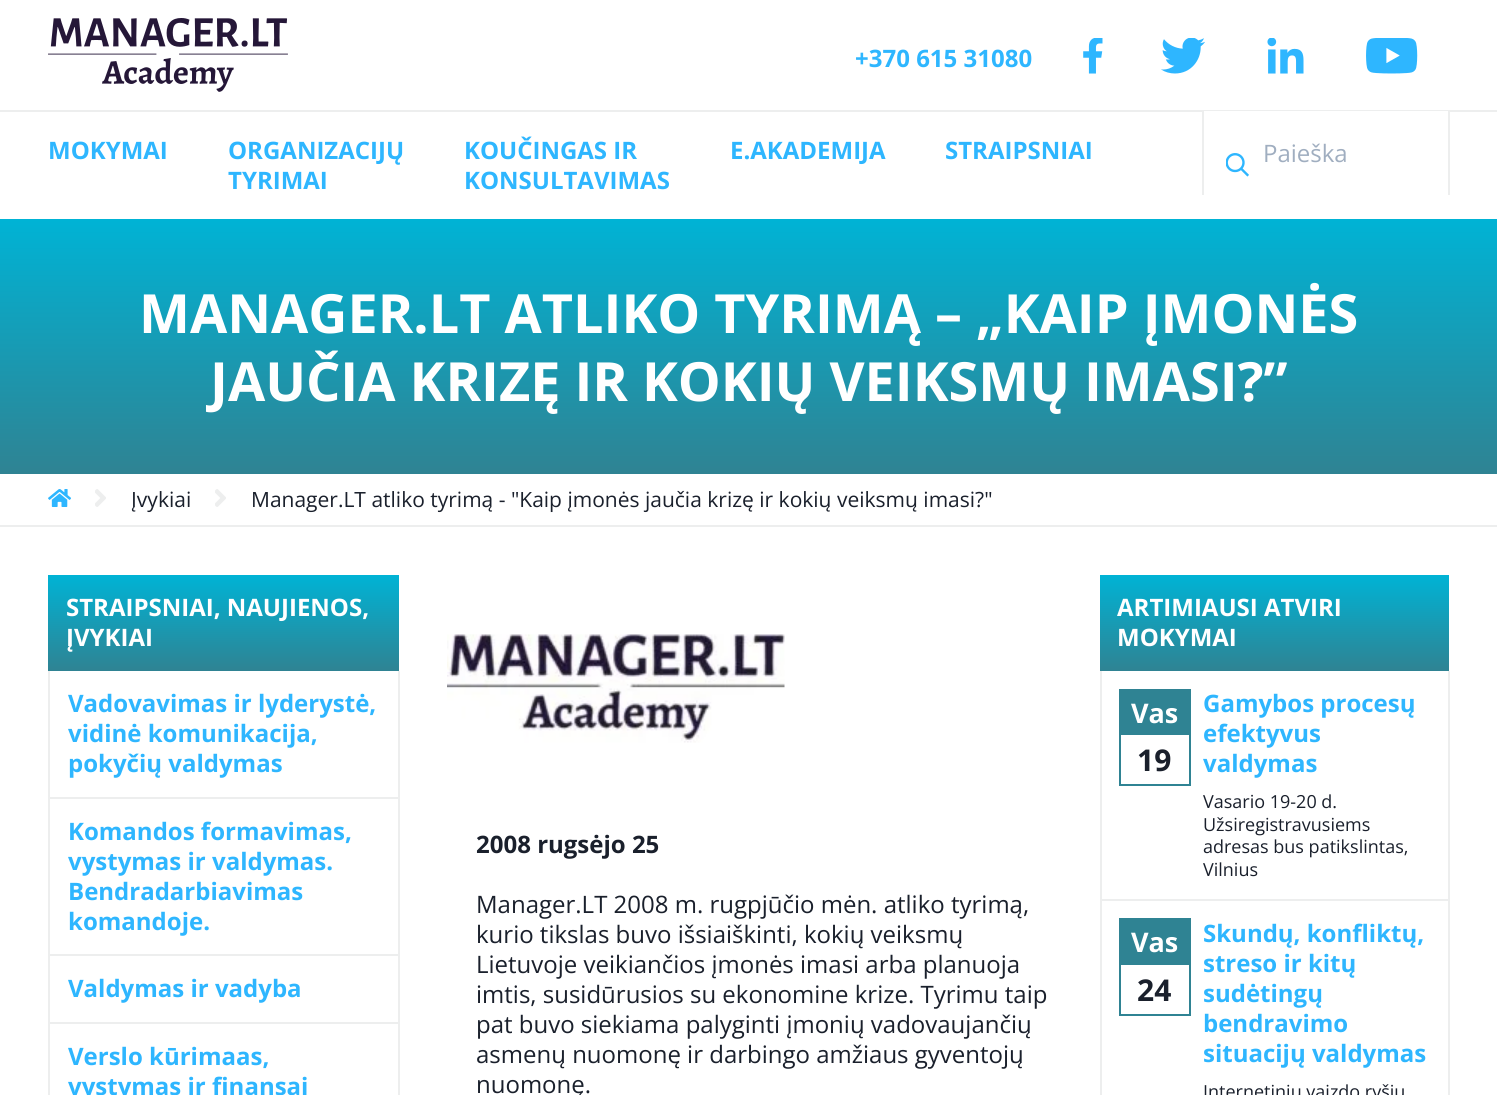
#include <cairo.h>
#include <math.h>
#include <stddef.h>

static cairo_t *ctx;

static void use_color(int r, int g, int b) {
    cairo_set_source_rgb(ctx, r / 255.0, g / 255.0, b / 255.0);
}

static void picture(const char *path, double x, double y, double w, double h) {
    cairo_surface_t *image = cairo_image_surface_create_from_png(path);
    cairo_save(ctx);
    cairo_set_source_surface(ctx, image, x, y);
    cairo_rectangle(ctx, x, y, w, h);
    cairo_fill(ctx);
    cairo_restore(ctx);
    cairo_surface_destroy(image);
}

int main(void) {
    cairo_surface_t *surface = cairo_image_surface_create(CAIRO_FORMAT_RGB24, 1497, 1095);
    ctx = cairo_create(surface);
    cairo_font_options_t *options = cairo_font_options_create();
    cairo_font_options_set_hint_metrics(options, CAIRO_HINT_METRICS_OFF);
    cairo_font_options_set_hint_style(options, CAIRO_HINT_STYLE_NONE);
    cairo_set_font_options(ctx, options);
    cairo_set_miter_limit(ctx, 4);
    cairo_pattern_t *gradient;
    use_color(255, 255, 255);
    cairo_paint(ctx);
    use_color(237, 238, 238);
    cairo_rectangle(ctx, 0, 110, 1497, 2);
    cairo_fill(ctx);
    picture("img1.png", 48, 18, 240, 74);
    cairo_select_font_face(ctx, "Open Sans", CAIRO_FONT_SLANT_NORMAL, CAIRO_FONT_WEIGHT_BOLD);
    cairo_set_font_size(ctx, 24);
    use_color(46, 182, 255);
    cairo_move_to(ctx, 855, 67);
    cairo_show_text(ctx, "+370 615 31080");
    picture("img2.png", 1083, 38, 20, 36);
    picture("img3.png", 1161, 38, 44, 36);
    picture("img4.png", 1267, 38, 37, 36);
    picture("img5.png", 1366, 38, 52, 36);
    cairo_move_to(ctx, 48, 159);
    cairo_show_text(ctx, "MOKYMAI");
    cairo_move_to(ctx, 228, 159);
    cairo_show_text(ctx, "ORGANIZACIJŲ");
    cairo_move_to(ctx, 228, 189);
    cairo_show_text(ctx, "TYRIMAI");
    cairo_move_to(ctx, 464, 159);
    cairo_show_text(ctx, "KOUČINGAS IR");
    cairo_move_to(ctx, 464, 189);
    cairo_show_text(ctx, "KONSULTAVIMAS");
    cairo_move_to(ctx, 730, 159);
    cairo_show_text(ctx, "E.AKADEMIJA");
    cairo_move_to(ctx, 945, 159);
    cairo_show_text(ctx, "STRAIPSNIAI");
    picture("img6.png", 1226, 153, 23, 24);
    use_color(255, 255, 255);
    cairo_rectangle(ctx, 1204, 111, 244, 1);
    cairo_fill(ctx);
    use_color(237, 238, 238);
    cairo_rectangle(ctx, 1448, 111, 2, 84);
    cairo_fill(ctx);
    cairo_rectangle(ctx, 1202, 111, 2, 84);
    cairo_fill(ctx);
    cairo_select_font_face(ctx, "Open Sans", CAIRO_FONT_SLANT_NORMAL, CAIRO_FONT_WEIGHT_NORMAL);
    use_color(160, 174, 192);
    cairo_move_to(ctx, 1263, 162);
    cairo_show_text(ctx, "Paieška");
    gradient = cairo_pattern_create_linear(749, 474, 749, 219);
    cairo_pattern_add_color_stop_rgba(gradient, 0, 0.184, 0.514, 0.576, 1);
    cairo_pattern_add_color_stop_rgba(gradient, 1, 0, 0.702, 0.835, 1);
    cairo_set_source(ctx, gradient);
    cairo_pattern_destroy(gradient);
    cairo_rectangle(ctx, 0, 219, 1497, 255);
    cairo_fill(ctx);
    cairo_select_font_face(ctx, "Open Sans", CAIRO_FONT_SLANT_NORMAL, CAIRO_FONT_WEIGHT_BOLD);
    cairo_set_font_size(ctx, 54);
    use_color(255, 255, 255);
    cairo_move_to(ctx, 139, 333);
    cairo_show_text(ctx, "MANAGER.LT ATLIKO TYRIMĄ – „KAIP ĮMONĖS");
    cairo_move_to(ctx, 210, 401);
    cairo_show_text(ctx, "JAUČIA KRIZĘ IR KOKIŲ VEIKSMŲ IMASI?”");
    use_color(237, 238, 238);
    cairo_rectangle(ctx, 0, 525, 1497, 2);
    cairo_fill(ctx);
    picture("img7.png", 48, 489, 23, 18);
    picture("img8.png", 95, 489, 11, 18);
    cairo_select_font_face(ctx, "Open Sans", CAIRO_FONT_SLANT_NORMAL, CAIRO_FONT_WEIGHT_NORMAL);
    cairo_set_font_size(ctx, 21);
    use_color(26, 32, 44);
    cairo_move_to(ctx, 131, 507);
    cairo_show_text(ctx, "Įvykiai");
    picture("img8.png", 215, 489, 11, 18);
    cairo_move_to(ctx, 251, 507);
    cairo_show_text(ctx, "Manager.LT atliko tyrimą - \"Kaip įmonės jaučia krizę ir kokių veiksmų imasi?\"");
    gradient = cairo_pattern_create_linear(224, 671, 224, 575);
    cairo_pattern_add_color_stop_rgba(gradient, 0, 0.184, 0.514, 0.576, 1);
    cairo_pattern_add_color_stop_rgba(gradient, 1, 0, 0.702, 0.835, 1);
    cairo_set_source(ctx, gradient);
    cairo_pattern_destroy(gradient);
    cairo_rectangle(ctx, 48, 575, 351, 96);
    cairo_fill(ctx);
    cairo_select_font_face(ctx, "Open Sans", CAIRO_FONT_SLANT_NORMAL, CAIRO_FONT_WEIGHT_BOLD);
    cairo_set_font_size(ctx, 24);
    use_color(255, 255, 255);
    cairo_move_to(ctx, 66, 616);
    cairo_show_text(ctx, "STRAIPSNIAI, NAUJIENOS,");
    cairo_move_to(ctx, 66, 646);
    cairo_show_text(ctx, "ĮVYKIAI");
    use_color(237, 238, 238);
    cairo_rectangle(ctx, 398, 671, 2, 127);
    cairo_fill(ctx);
    cairo_rectangle(ctx, 48, 797, 351, 2);
    cairo_fill(ctx);
    cairo_rectangle(ctx, 48, 671, 2, 127);
    cairo_fill(ctx);
    use_color(46, 182, 255);
    cairo_move_to(ctx, 68, 712);
    cairo_show_text(ctx, "Vadovavimas ir lyderystė,");
    cairo_move_to(ctx, 68, 742);
    cairo_show_text(ctx, "vidinė komunikacija,");
    cairo_move_to(ctx, 68, 772);
    cairo_show_text(ctx, "pokyčių valdymas");
    use_color(237, 238, 238);
    cairo_rectangle(ctx, 398, 798, 2, 225);
    cairo_fill(ctx);
    cairo_rectangle(ctx, 48, 954, 351, 2);
    cairo_fill(ctx);
    cairo_rectangle(ctx, 48, 798, 2, 158);
    cairo_fill(ctx);
    use_color(46, 182, 255);
    cairo_move_to(ctx, 68, 840);
    cairo_show_text(ctx, "Komandos formavimas,");
    cairo_move_to(ctx, 68, 870);
    cairo_show_text(ctx, "vystymas ir valdymas.");
    cairo_move_to(ctx, 68, 900);
    cairo_show_text(ctx, "Bendradarbiavimas");
    cairo_move_to(ctx, 68, 930);
    cairo_show_text(ctx, "komandoje.");
    use_color(237, 238, 238);
    cairo_rectangle(ctx, 48, 1022, 351, 2);
    cairo_fill(ctx);
    cairo_rectangle(ctx, 48, 956, 2, 139);
    cairo_fill(ctx);
    use_color(46, 182, 255);
    cairo_move_to(ctx, 68, 997);
    cairo_show_text(ctx, "Valdymas ir vadyba");
    use_color(237, 238, 238);
    cairo_rectangle(ctx, 398, 1023, 2, 72);
    cairo_fill(ctx);
    use_color(46, 182, 255);
    cairo_move_to(ctx, 68, 1065);
    cairo_show_text(ctx, "Verslo kūrimaas,");
    cairo_move_to(ctx, 68, 1095);
    cairo_show_text(ctx, "vystymas ir finansai");
    picture("img9.png", 447, 634, 338, 109);
    use_color(26, 32, 44);
    cairo_move_to(ctx, 476, 853);
    cairo_show_text(ctx, "2008 rugsėjo 25");
    cairo_select_font_face(ctx, "Open Sans", CAIRO_FONT_SLANT_NORMAL, CAIRO_FONT_WEIGHT_NORMAL);
    cairo_move_to(ctx, 476, 913);
    cairo_show_text(ctx, "Manager.LT 2008 m. rugpjūčio mėn. atliko tyrimą,");
    cairo_move_to(ctx, 476, 943);
    cairo_show_text(ctx, "kurio tikslas buvo išsiaiškinti, kokių veiksmų");
    cairo_move_to(ctx, 476, 973);
    cairo_show_text(ctx, "Lietuvoje veikiančios įmonės imasi arba planuoja");
    cairo_move_to(ctx, 476, 1003);
    cairo_show_text(ctx, "imtis, susidūrusios su ekonomine krize. Tyrimu taip");
    cairo_move_to(ctx, 476, 1033);
    cairo_show_text(ctx, "pat buvo siekiama palyginti įmonių vadovaujančių");
    cairo_move_to(ctx, 476, 1063);
    cairo_show_text(ctx, "asmenų nuomonę ir darbingo amžiaus gyventojų");
    cairo_move_to(ctx, 476, 1093);
    cairo_show_text(ctx, "nuomonę.");
    gradient = cairo_pattern_create_linear(1274, 671, 1274, 575);
    cairo_pattern_add_color_stop_rgba(gradient, 0, 0.184, 0.514, 0.576, 1);
    cairo_pattern_add_color_stop_rgba(gradient, 1, 0, 0.702, 0.835, 1);
    cairo_set_source(ctx, gradient);
    cairo_pattern_destroy(gradient);
    cairo_rectangle(ctx, 1100, 575, 349, 96);
    cairo_fill(ctx);
    cairo_select_font_face(ctx, "Open Sans", CAIRO_FONT_SLANT_NORMAL, CAIRO_FONT_WEIGHT_BOLD);
    use_color(255, 255, 255);
    cairo_move_to(ctx, 1117, 616);
    cairo_show_text(ctx, "ARTIMIAUSI ATVIRI");
    cairo_move_to(ctx, 1117, 646);
    cairo_show_text(ctx, "MOKYMAI");
    use_color(237, 238, 238);
    cairo_rectangle(ctx, 1448, 671, 2, 424);
    cairo_fill(ctx);
    cairo_rectangle(ctx, 1100, 671, 2, 424);
    cairo_fill(ctx);
    cairo_rectangle(ctx, 1101, 899, 347, 2);
    cairo_fill(ctx);
    cairo_rectangle(ctx, 1120, 690, 70, 95);
    use_color(47, 131, 147);
    cairo_stroke(ctx);
    cairo_rectangle(ctx, 1121, 691, 68, 44);
    cairo_fill(ctx);
    cairo_set_font_size(ctx, 27);
    use_color(255, 255, 255);
    cairo_move_to(ctx, 1131, 723);
    cairo_show_text(ctx, "Vas");
    cairo_set_font_size(ctx, 30);
    use_color(26, 32, 44);
    cairo_move_to(ctx, 1137, 771);
    cairo_show_text(ctx, "19");
    cairo_set_font_size(ctx, 24);
    use_color(46, 182, 255);
    cairo_move_to(ctx, 1203, 712);
    cairo_show_text(ctx, "Gamybos procesų");
    cairo_move_to(ctx, 1203, 742);
    cairo_show_text(ctx, "efektyvus");
    cairo_move_to(ctx, 1203, 772);
    cairo_show_text(ctx, "valdymas");
    cairo_select_font_face(ctx, "Open Sans", CAIRO_FONT_SLANT_NORMAL, CAIRO_FONT_WEIGHT_NORMAL);
    cairo_set_font_size(ctx, 18);
    use_color(26, 32, 44);
    cairo_move_to(ctx, 1203, 808);
    cairo_show_text(ctx, "Vasario 19-20 d.");
    cairo_move_to(ctx, 1203, 831);
    cairo_show_text(ctx, "Užsiregistravusiems");
    cairo_move_to(ctx, 1203, 853);
    cairo_show_text(ctx, "adresas bus patikslintas,");
    cairo_move_to(ctx, 1203, 876);
    cairo_show_text(ctx, "Vilnius");
    cairo_rectangle(ctx, 1120, 919, 70, 96);
    use_color(47, 131, 147);
    cairo_stroke(ctx);
    cairo_rectangle(ctx, 1121, 920, 68, 45);
    cairo_fill(ctx);
    cairo_select_font_face(ctx, "Open Sans", CAIRO_FONT_SLANT_NORMAL, CAIRO_FONT_WEIGHT_BOLD);
    cairo_set_font_size(ctx, 27);
    use_color(255, 255, 255);
    cairo_move_to(ctx, 1131, 952);
    cairo_show_text(ctx, "Vas");
    cairo_set_font_size(ctx, 30);
    use_color(26, 32, 44);
    cairo_move_to(ctx, 1137, 1001);
    cairo_show_text(ctx, "24");
    cairo_set_font_size(ctx, 24);
    use_color(46, 182, 255);
    cairo_move_to(ctx, 1203, 942);
    cairo_show_text(ctx, "Skundų, konfliktų,");
    cairo_move_to(ctx, 1203, 972);
    cairo_show_text(ctx, "streso ir kitų");
    cairo_move_to(ctx, 1203, 1002);
    cairo_show_text(ctx, "sudėtingų");
    cairo_move_to(ctx, 1203, 1032);
    cairo_show_text(ctx, "bendravimo");
    cairo_move_to(ctx, 1203, 1062);
    cairo_show_text(ctx, "situacijų valdymas");
    cairo_select_font_face(ctx, "Open Sans", CAIRO_FONT_SLANT_NORMAL, CAIRO_FONT_WEIGHT_NORMAL);
    cairo_set_font_size(ctx, 18);
    use_color(26, 32, 44);
    cairo_move_to(ctx, 1203, 1098);
    cairo_show_text(ctx, "Internetiniu vaizdo ryšiu");
    cairo_surface_write_to_png(surface, "result.png");
    cairo_font_options_destroy(options);
    cairo_destroy(ctx);
    cairo_surface_destroy(surface);
    return 0;
}
